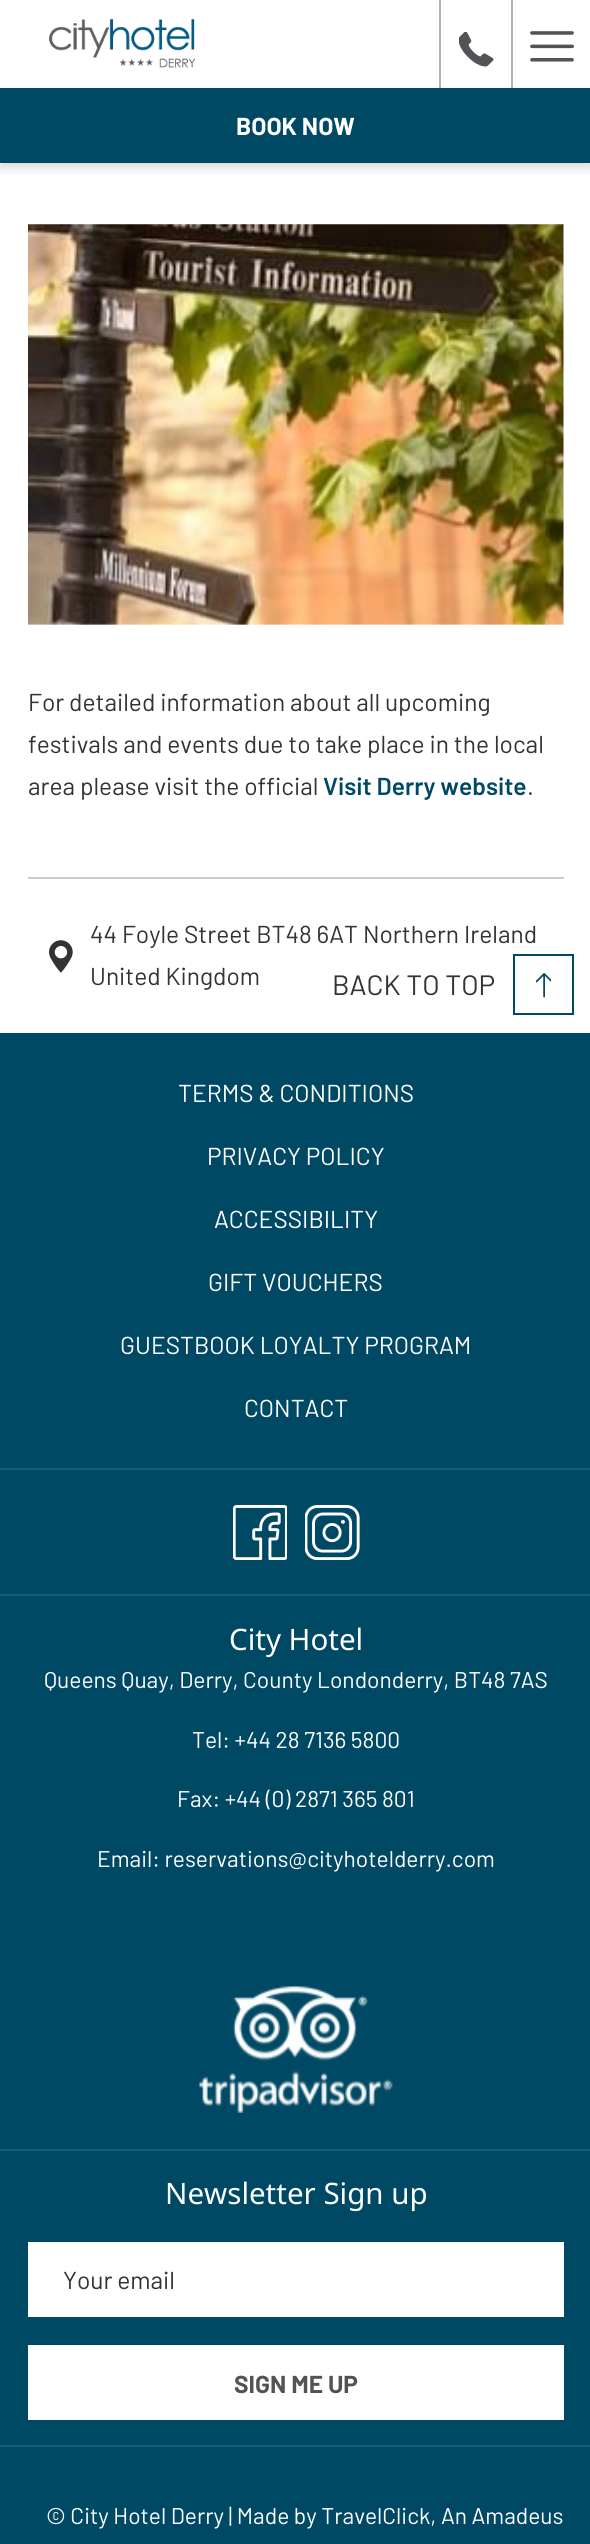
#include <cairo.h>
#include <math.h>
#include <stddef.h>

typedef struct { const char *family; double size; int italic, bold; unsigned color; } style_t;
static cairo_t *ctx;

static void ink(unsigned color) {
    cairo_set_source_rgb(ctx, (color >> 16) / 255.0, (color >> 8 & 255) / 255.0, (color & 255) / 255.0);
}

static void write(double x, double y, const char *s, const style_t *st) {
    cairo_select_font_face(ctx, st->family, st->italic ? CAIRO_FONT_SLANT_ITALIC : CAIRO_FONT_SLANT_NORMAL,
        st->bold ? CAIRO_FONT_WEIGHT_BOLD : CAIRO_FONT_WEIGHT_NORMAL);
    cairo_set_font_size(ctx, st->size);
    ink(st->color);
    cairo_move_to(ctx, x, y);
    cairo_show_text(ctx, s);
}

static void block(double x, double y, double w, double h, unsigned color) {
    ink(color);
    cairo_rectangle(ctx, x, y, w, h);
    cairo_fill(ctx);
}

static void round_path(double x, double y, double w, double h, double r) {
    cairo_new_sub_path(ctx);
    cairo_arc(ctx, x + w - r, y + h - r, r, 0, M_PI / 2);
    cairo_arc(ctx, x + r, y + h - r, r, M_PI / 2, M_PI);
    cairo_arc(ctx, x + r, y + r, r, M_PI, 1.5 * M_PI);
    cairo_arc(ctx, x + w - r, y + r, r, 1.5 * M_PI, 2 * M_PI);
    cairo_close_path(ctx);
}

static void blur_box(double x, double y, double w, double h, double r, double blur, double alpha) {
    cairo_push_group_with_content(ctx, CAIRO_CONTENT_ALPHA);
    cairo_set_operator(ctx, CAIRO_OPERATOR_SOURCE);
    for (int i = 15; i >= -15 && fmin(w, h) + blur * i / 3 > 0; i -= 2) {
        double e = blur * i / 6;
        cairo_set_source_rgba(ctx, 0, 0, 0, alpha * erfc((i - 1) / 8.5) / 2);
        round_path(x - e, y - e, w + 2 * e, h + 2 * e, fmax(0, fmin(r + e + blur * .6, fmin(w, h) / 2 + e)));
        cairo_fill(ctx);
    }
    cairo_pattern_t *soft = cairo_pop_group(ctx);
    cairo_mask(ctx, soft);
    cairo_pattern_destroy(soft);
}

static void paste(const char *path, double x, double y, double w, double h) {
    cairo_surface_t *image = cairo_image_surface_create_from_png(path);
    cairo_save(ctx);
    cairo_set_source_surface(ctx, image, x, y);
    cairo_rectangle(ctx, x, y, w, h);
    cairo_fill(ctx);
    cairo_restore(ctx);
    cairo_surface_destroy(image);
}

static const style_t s1 = {"Barlow", 24.5, 0, 1, 0xffffff};
static const style_t s2 = {"Barlow", 24.5, 0, 0, 0x333333};
static const style_t s3 = {"Barlow SemiBold", 24.5, 0, 0, 0x004964};
static const style_t s4 = {"Barlow", 28, 0, 0, 0x333333};
static const style_t s5 = {"Barlow", 24.5, 0, 0, 0xffffff};
static const style_t s6 = {"Noto Sans", 29.5, 0, 0, 0xffffff};
static const style_t s7 = {"Barlow", 22.75, 0, 0, 0xffffff};
static const style_t s8 = {"Barlow", 24.5, 0, 1, 0x525356};

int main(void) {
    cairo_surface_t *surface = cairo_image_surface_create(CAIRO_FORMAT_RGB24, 590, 2544);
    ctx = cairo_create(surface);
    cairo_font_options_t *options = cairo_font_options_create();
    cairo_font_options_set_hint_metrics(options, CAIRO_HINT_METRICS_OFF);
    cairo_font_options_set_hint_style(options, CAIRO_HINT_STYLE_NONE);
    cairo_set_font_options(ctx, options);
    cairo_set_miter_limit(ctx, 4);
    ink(0xffffff);
    cairo_paint(ctx);
    paste("pic1.png", 49, 19, 146, 49);
    block(439, 0, 2, 88, 0xb3b3b3);
    paste("pic2.png", 459, 32, 35, 35);
    ink(0x000000);
    blur_box(0, 93, 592, 75, 0, 5, 0.15);
    block(511, 0, 2, 88, 0xb3b3b3);
    paste("pic3.png", 530, 31, 44, 31);
    block(0, 88, 590, 75, 0x004964);
    write(236, 135, "BOOK NOW", &s1);
    paste("pic4.png", 28, 224, 536, 401);
    write(28, 711, "For detailed information about all upcoming", &s2);
    write(28, 753, "festivals and events due to take place in the local", &s2);
    write(28, 795, "area please visit the official", &s2);
    write(323, 795, "Visit Derry website", &s3);
    write(527, 795, ".", &s2);
    block(28, 877, 536, 2, 0xcccccc);
    paste("pic5.png", 49, 940, 24, 33);
    write(90, 943, "44 Foyle Street BT48 6AT Northern Ireland", &s2);
    write(90, 985, "United Kingdom", &s2);
    write(332, 995, "BACK TO TOP", &s4);
    cairo_rectangle(ctx, 514, 955, 59, 59);
    ink(0x004964);
    cairo_stroke(ctx);
    paste("pic6.png", 536, 973, 15, 25);
    block(0, 1033, 590, 1511, 0x004964);
    block(0, 1468, 590, 2, 0x1a5b74);
    write(178, 1102, "TERMS & CONDITIONS", &s5);
    write(207, 1165, "PRIVACY POLICY", &s5);
    write(214, 1228, "ACCESSIBILITY", &s5);
    write(208, 1291, "GIFT VOUCHERS", &s5);
    write(120, 1354, "GUESTBOOK LOYALTY PROGRAM", &s5);
    write(244, 1417, "CONTACT", &s5);
    block(0, 1594, 590, 2, 0x1a5b74);
    paste("pic7.png", 233, 1505, 54, 55);
    paste("pic8.png", 305, 1505, 55, 55);
    block(0, 2149, 590, 2, 0x1a5b74);
    write(229, 1650, "City Hotel", &s6);
    write(44, 1688, "Queens Quay, Derry, County Londonderry, BT48 7AS", &s7);
    write(192, 1748, "Tel: +44 28 7136 5800", &s7);
    write(177, 1807, "Fax: +44 (0) 2871 365 801", &s7);
    write(97, 1867, "Email: reservations@cityhotelderry.com", &s7);
    paste("pic9.png", 199, 1986, 194, 127);
    block(0, 2445, 590, 2, 0x1a5b74);
    write(165, 2204, "Newsletter Sign up", &s6);
    block(28, 2242, 536, 75, 0xffffff);
    write(63, 2289, "Your email", &s2);
    block(28, 2345, 536, 75, 0xffffff);
    write(234, 2393, "SIGN ME UP", &s8);
    write(46, 2524, "© City Hotel Derry | Made by TravelClick, An Amadeus", &s7);
    cairo_surface_write_to_png(surface, "screenshot.png");
    cairo_font_options_destroy(options);
    cairo_destroy(ctx);
    cairo_surface_destroy(surface);
    return 0;
}
